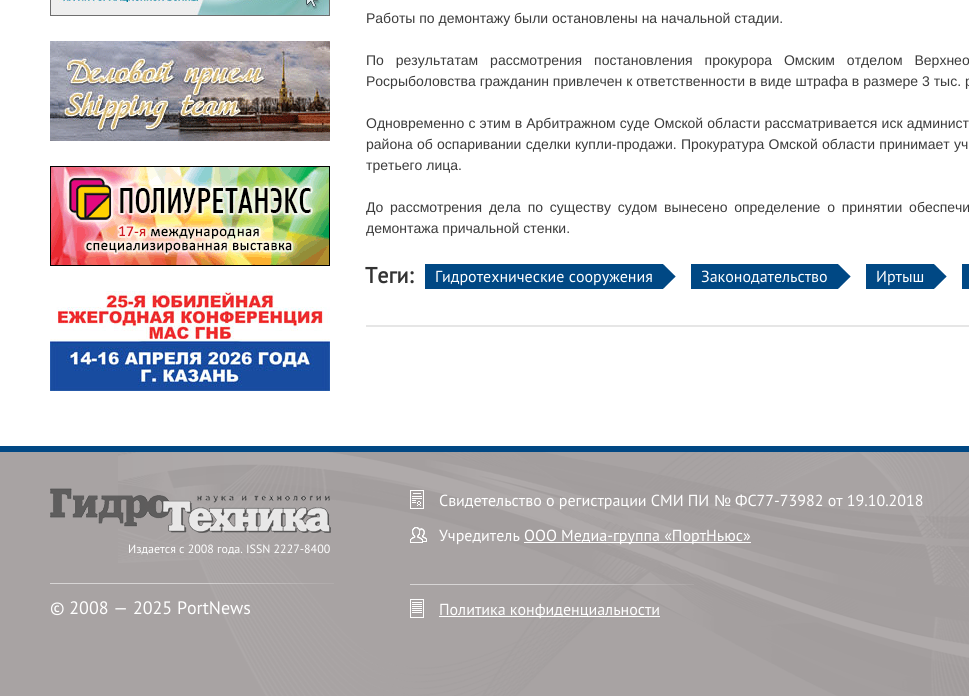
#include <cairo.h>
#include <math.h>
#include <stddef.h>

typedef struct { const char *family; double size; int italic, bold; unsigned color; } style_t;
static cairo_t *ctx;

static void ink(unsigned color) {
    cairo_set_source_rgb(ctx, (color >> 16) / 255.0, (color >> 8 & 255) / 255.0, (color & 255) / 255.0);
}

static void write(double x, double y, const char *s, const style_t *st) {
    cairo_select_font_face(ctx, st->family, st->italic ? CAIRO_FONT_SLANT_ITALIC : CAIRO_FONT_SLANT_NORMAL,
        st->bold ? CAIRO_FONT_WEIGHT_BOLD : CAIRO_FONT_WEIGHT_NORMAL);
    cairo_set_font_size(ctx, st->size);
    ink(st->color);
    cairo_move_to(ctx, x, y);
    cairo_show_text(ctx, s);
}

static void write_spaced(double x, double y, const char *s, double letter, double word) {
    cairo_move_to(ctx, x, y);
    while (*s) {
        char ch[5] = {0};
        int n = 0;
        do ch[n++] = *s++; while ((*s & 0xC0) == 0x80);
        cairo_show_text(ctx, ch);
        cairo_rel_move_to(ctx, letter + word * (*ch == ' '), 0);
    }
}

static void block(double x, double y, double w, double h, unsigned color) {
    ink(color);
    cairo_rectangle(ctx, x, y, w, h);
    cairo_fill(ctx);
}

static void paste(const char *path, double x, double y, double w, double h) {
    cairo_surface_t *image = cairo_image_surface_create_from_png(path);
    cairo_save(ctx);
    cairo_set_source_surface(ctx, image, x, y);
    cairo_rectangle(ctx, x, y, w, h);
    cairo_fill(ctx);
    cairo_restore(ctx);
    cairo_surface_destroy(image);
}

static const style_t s1 = {"Liberation Sans", 14, 0, 0, 0x3b3b3b};
static const style_t s2 = {"PT Sans", 22, 0, 1, 0x333333};
static const style_t s3 = {"PT Sans", 16, 0, 0, 0xffffff};
static const style_t s4 = {"PT Sans", 12, 0, 0, 0xffffff};
static const style_t s5 = {"PT Sans", 18, 0, 0, 0xffffff};
static const style_t s6 = {"Liberation Sans", 16, 0, 0, 0xffffff};

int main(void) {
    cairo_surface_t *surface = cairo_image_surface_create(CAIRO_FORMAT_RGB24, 969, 696);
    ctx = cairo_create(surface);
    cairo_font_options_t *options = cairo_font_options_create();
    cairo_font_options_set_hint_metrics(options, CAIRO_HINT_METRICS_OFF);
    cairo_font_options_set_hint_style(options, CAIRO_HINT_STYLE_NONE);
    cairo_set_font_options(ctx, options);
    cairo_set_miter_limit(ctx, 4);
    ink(0xffffff);
    cairo_paint(ctx);
    paste("pic1.png", 50, 0, 280, 16);
    paste("pic2.png", 50, 41, 280, 100);
    paste("pic3.png", 50, 166, 280, 100);
    paste("pic4.png", 50, 291, 280, 100);
    write(366, 23, "Работы по демонтажу были остановлены на начальной стадии.", &s1);
    write_spaced(366, 65, "По результатам рассмотрения постановления прокурора Омским отделом Верхнео", 0, 8);
    write(366, 86, "Росрыболовства гражданин привлечен к ответственности в виде штрафа в размере 3 тыс. р", &s1);
    write_spaced(366, 128, "Одновременно с этим в Арбитражном суде Омской области рассматривается иск админист", 0, 0.25);
    write_spaced(366, 149, "района об оспаривании сделки купли-продажи. Прокуратура Омской области принимает уч", 0, 0.4);
    write(366, 170, "третьего лица.", &s1);
    write_spaced(366, 212, "До рассмотрения дела по существу судом вынесено определение о принятии обеспечи", 0, 2.9);
    write(366, 233, "демонтажа причальной стенки.", &s1);
    write(365, 283, "Теги:", &s2);
    block(425, 264, 238, 25, 0x004884);
    write(435, 282, "Гидротехнические сооружения", &s3);
    paste("pic5.png", 663, 264, 13, 25);
    block(691, 264, 147, 25, 0x004884);
    write(701, 282, "Законодательство", &s3);
    paste("pic5.png", 838, 264, 13, 25);
    block(866, 264, 68, 25, 0x004884);
    write(876, 282, "Иртыш", &s3);
    paste("pic5.png", 934, 264, 13, 25);
    block(962, 264, 7, 25, 0x004884);
    block(366, 325, 603, 2, 0xe6e6e6);
    block(0, 452, 969, 244, 0xa8a3a3);
    paste("pic6.png", 118, 452, 851, 244);
    block(0, 446, 969, 6, 0x004884);
    paste("pic7.png", 50, 488, 281, 45);
    write(128, 553, "Издается с 2008 года. ISSN 2227-8400", &s4);
    paste("pic8.png", 50, 583, 284, 1);
    write(50, 614, "© 2008 — 2025 PortNews", &s5);
    paste("pic9.png", 410, 490, 14, 19);
    write(439, 506, "Свидетельство о регистрации СМИ ПИ", &s3);
    write(714, 506, "№", &s6);
    write(735, 506, "ФС77-73982 от 19.10.2018", &s3);
    paste("pic10.png", 410, 527, 17, 16);
    write(439, 541, "Учредитель", &s3);
    block(524, 542, 227, 1, 0xffffff);
    write(524, 541, "ООО Медиа-группа «ПортНьюс»", &s3);
    paste("pic11.png", 410, 584, 284, 1);
    paste("pic12.png", 410, 599, 14, 19);
    block(439, 616, 221, 1, 0xffffff);
    write(439, 615, "Политика конфиденциальности", &s3);
    cairo_surface_write_to_png(surface, "screenshot.png");
    cairo_font_options_destroy(options);
    cairo_destroy(ctx);
    cairo_surface_destroy(surface);
    return 0;
}
